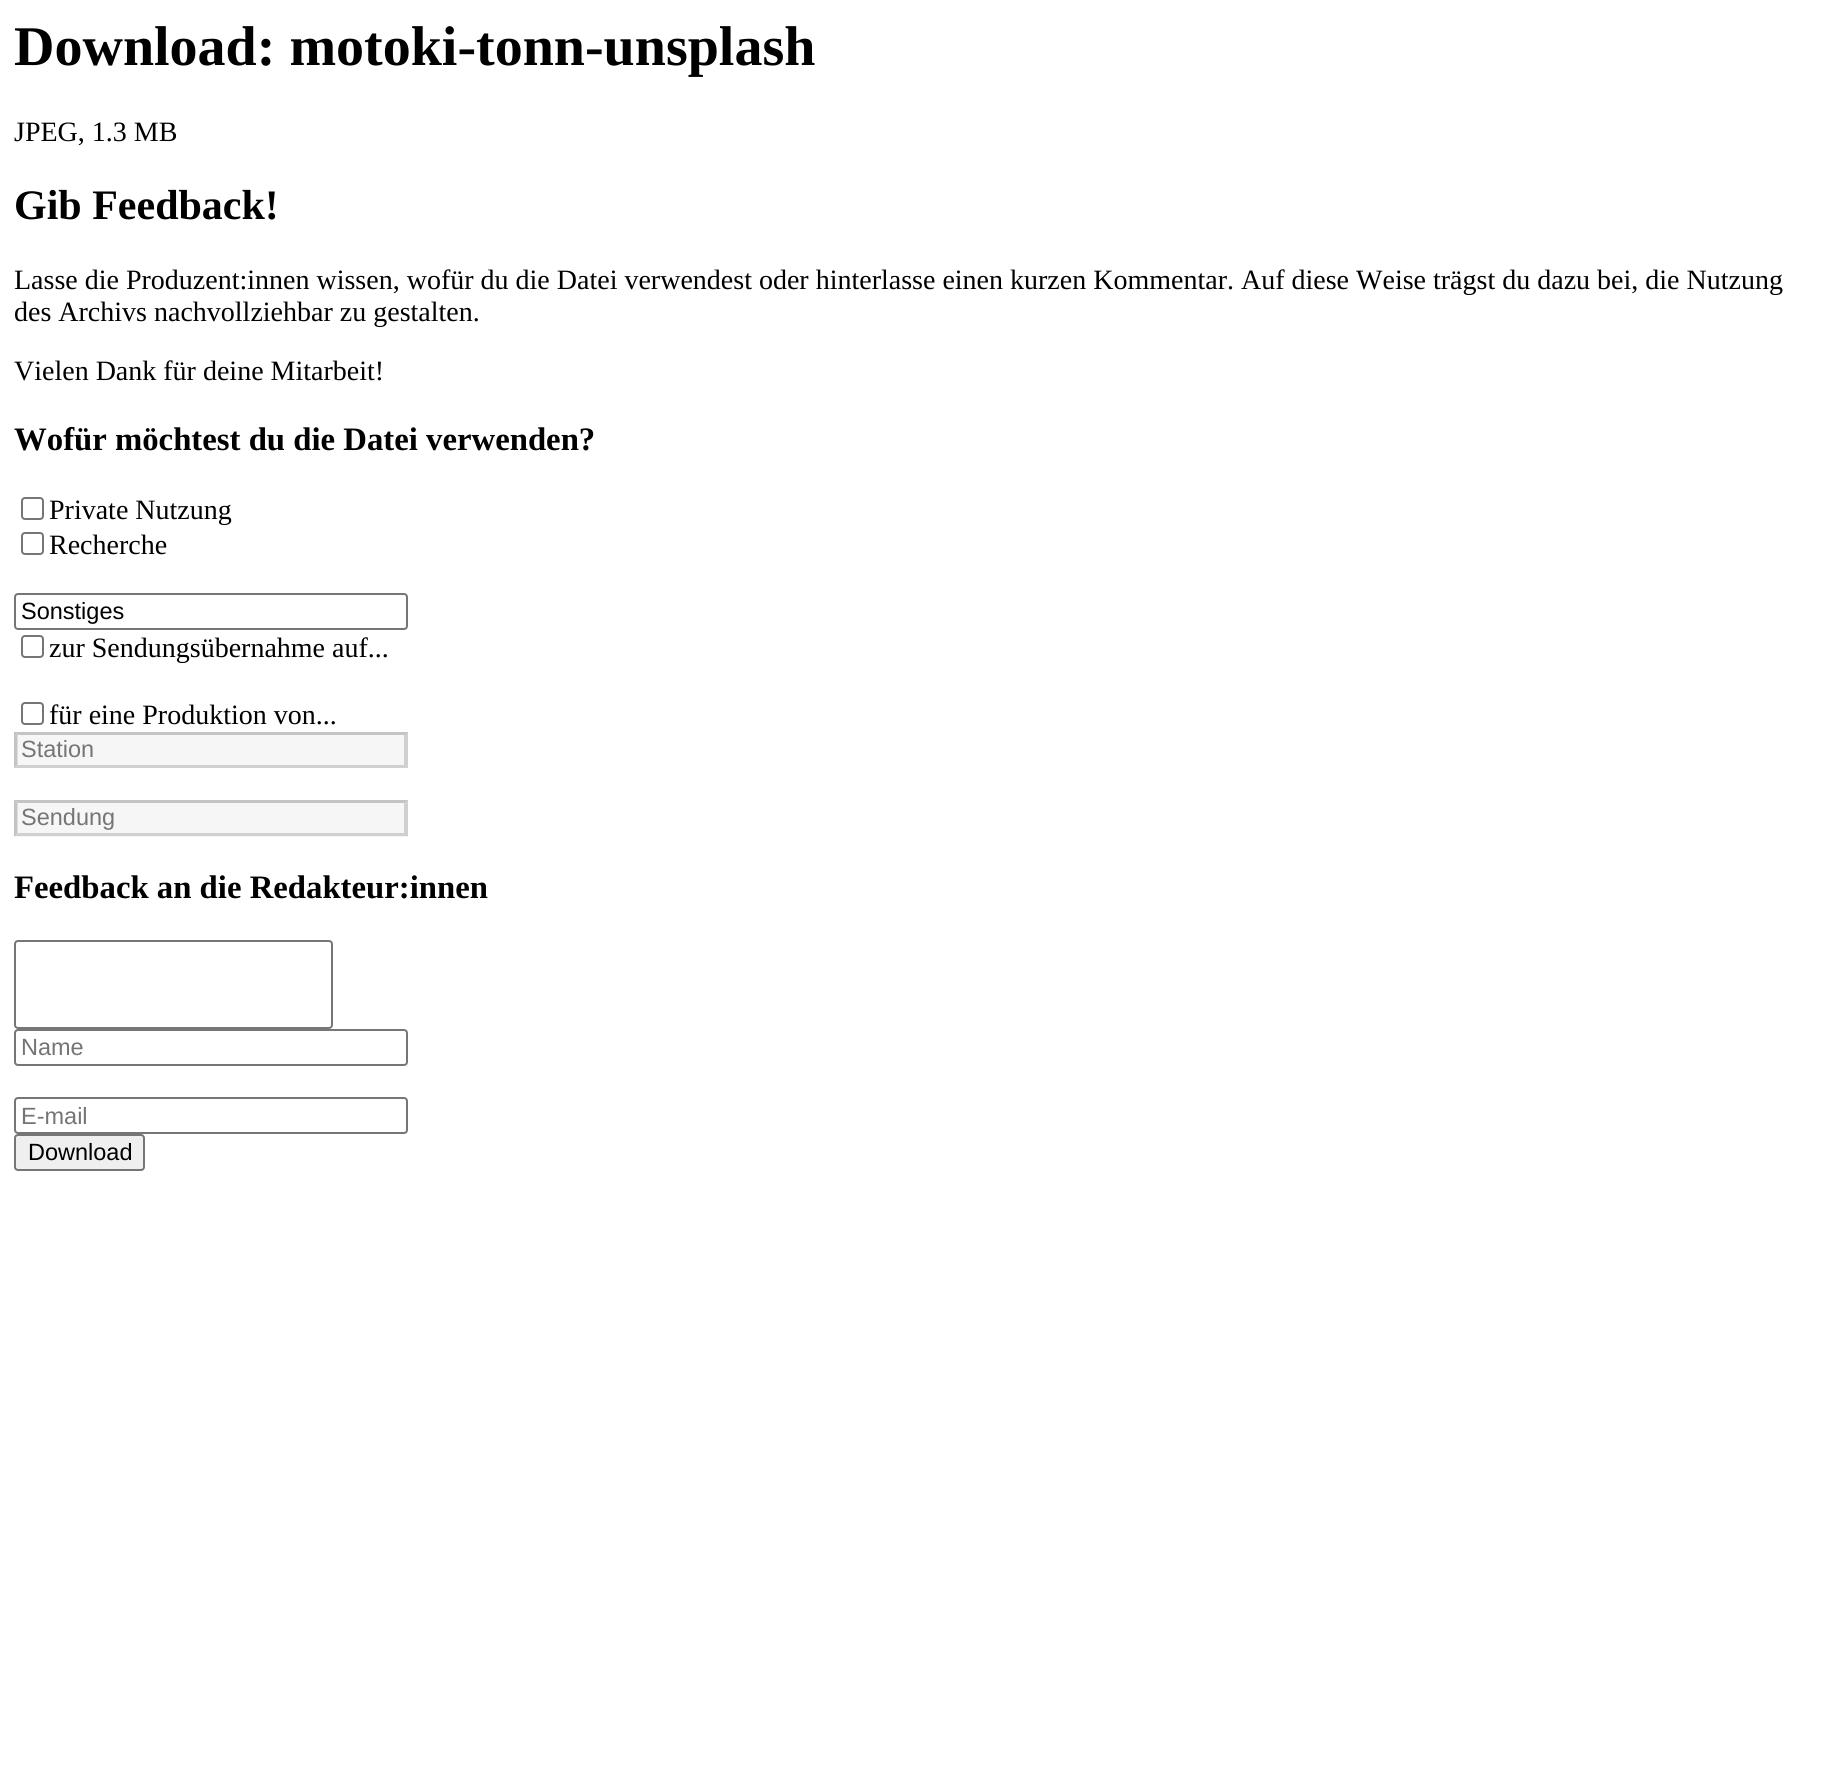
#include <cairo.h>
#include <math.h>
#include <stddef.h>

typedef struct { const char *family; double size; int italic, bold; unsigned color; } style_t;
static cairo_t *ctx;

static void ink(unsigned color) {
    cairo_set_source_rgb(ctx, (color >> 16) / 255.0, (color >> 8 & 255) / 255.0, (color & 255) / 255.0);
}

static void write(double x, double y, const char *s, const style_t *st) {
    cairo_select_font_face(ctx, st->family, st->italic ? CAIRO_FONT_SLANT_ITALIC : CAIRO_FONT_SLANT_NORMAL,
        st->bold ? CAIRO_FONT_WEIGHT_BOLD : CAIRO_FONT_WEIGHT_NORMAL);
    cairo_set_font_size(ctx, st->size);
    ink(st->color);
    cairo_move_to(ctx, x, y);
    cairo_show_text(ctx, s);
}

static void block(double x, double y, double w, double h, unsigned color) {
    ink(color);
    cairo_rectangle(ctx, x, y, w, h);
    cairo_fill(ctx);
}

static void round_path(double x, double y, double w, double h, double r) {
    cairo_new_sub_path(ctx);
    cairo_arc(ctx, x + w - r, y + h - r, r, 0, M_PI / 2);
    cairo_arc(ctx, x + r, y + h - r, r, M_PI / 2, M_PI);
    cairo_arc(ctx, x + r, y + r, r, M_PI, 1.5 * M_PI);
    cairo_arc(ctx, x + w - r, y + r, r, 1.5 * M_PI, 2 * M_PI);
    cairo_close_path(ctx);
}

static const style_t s1 = {"Liberation Serif", 56, 0, 1, 0x000000};
static const style_t s2 = {"Liberation Serif", 28, 0, 0, 0x000000};
static const style_t s3 = {"Liberation Serif", 42, 0, 1, 0x000000};
static const style_t s4 = {"Liberation Serif", 32.75, 0, 1, 0x000000};
static const style_t s5 = {"Liberation Sans", 23.5, 0, 0, 0x000000};
static const style_t s6 = {"Liberation Sans", 23.5, 0, 0, 0x757575};

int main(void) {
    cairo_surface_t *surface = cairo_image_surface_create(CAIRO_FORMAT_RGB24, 1831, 1781);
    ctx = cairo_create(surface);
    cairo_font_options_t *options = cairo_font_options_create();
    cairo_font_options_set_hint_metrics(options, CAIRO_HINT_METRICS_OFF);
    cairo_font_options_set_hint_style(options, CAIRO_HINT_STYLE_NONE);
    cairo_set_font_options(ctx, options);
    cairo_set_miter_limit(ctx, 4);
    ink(0xffffff);
    cairo_paint(ctx);
    write(14, 65, "Download: motoki-tonn-unsplash", &s1);
    write(14, 141, "JPEG, 1.3 MB", &s2);
    write(14, 219, "Gib Feedback!", &s3);
    write(14, 289, "Lasse die Produzent:innen wissen, wofür du die Datei verwendest oder hinterlasse einen kurzen Kommentar. Auf diese Weise trägst du dazu bei, die Nutzung", &s2);
    write(14, 321, "des Archivs nachvollziehbar zu gestalten.", &s2);
    write(14, 380, "Vielen Dank für deine Mitarbeit!", &s2);
    write(14, 450, "Wofür möchtest du die Datei verwenden?", &s4);
    round_path(22, 498, 21, 21, 3);
    ink(0x767676);
    cairo_stroke(ctx);
    write(49, 519, "Private Nutzung", &s2);
    round_path(22, 533, 21, 21, 3);
    ink(0x767676);
    cairo_stroke(ctx);
    write(49, 554, "Recherche", &s2);
    round_path(15, 594, 392, 35, 3);
    ink(0x767676);
    cairo_stroke(ctx);
    write(21, 619, "Sonstiges", &s5);
    round_path(22, 636, 21, 21, 3);
    ink(0x767676);
    cairo_stroke(ctx);
    write(49, 657, "zur Sendungsübernahme auf...", &s2);
    round_path(22, 703, 21, 21, 3);
    ink(0x767676);
    cairo_stroke(ctx);
    write(49, 724, "für eine Produktion von...", &s2);
    block(14, 732, 394, 36, 0xf6f6f6);
    ink(0xc4c4c4);
    cairo_new_path(ctx);
    cairo_move_to(ctx, 14, 732);
    cairo_line_to(ctx, 408, 732);
    cairo_line_to(ctx, 404, 735);
    cairo_line_to(ctx, 18, 735);
    cairo_close_path(ctx);
    cairo_fill(ctx);
    cairo_set_source_rgba(ctx, 0.463, 0.463, 0.463, 0.3);
    cairo_new_path(ctx);
    cairo_move_to(ctx, 408, 731.5);
    cairo_line_to(ctx, 408, 768);
    cairo_line_to(ctx, 404, 765);
    cairo_line_to(ctx, 404, 735);
    cairo_close_path(ctx);
    cairo_fill(ctx);
    cairo_new_path(ctx);
    cairo_move_to(ctx, 408, 768);
    cairo_line_to(ctx, 14, 768);
    cairo_line_to(ctx, 18, 765);
    cairo_line_to(ctx, 404, 765);
    cairo_close_path(ctx);
    cairo_fill(ctx);
    cairo_set_source_rgba(ctx, 0.31, 0.31, 0.31, 0.3);
    cairo_new_path(ctx);
    cairo_move_to(ctx, 14, 768);
    cairo_line_to(ctx, 14, 731.5);
    cairo_line_to(ctx, 17.5, 735);
    cairo_line_to(ctx, 17.5, 765);
    cairo_close_path(ctx);
    cairo_fill(ctx);
    write(21, 757, "Station", &s6);
    block(14, 800, 394, 37, 0xf6f6f6);
    ink(0xc4c4c4);
    cairo_new_path(ctx);
    cairo_move_to(ctx, 14, 800);
    cairo_line_to(ctx, 408, 800);
    cairo_line_to(ctx, 404, 803);
    cairo_line_to(ctx, 18, 803);
    cairo_close_path(ctx);
    cairo_fill(ctx);
    cairo_set_source_rgba(ctx, 0.463, 0.463, 0.463, 0.3);
    cairo_new_path(ctx);
    cairo_move_to(ctx, 408, 800);
    cairo_line_to(ctx, 408, 836.5);
    cairo_line_to(ctx, 404, 833);
    cairo_line_to(ctx, 404, 803);
    cairo_close_path(ctx);
    cairo_fill(ctx);
    cairo_new_path(ctx);
    cairo_move_to(ctx, 408, 836);
    cairo_line_to(ctx, 14, 836);
    cairo_line_to(ctx, 18, 833);
    cairo_line_to(ctx, 404, 833);
    cairo_close_path(ctx);
    cairo_fill(ctx);
    cairo_set_source_rgba(ctx, 0.31, 0.31, 0.31, 0.3);
    cairo_new_path(ctx);
    cairo_move_to(ctx, 14, 836.5);
    cairo_line_to(ctx, 14, 800);
    cairo_line_to(ctx, 17.5, 803);
    cairo_line_to(ctx, 17.5, 833);
    cairo_close_path(ctx);
    cairo_fill(ctx);
    write(21, 825, "Sendung", &s6);
    write(14, 898, "Feedback an die Redakteur:innen", &s4);
    round_path(15, 941, 317, 87, 3);
    ink(0x767676);
    cairo_stroke(ctx);
    round_path(15, 1030, 392, 35, 3);
    cairo_stroke(ctx);
    write(21, 1055, "Name", &s6);
    round_path(15, 1098, 392, 35, 3);
    ink(0x767676);
    cairo_stroke(ctx);
    write(21, 1124, "E-mail", &s6);
    ink(0xefefef);
    round_path(15, 1135, 129, 35, 3);
    cairo_fill_preserve(ctx);
    ink(0x767676);
    cairo_stroke(ctx);
    write(28, 1160, "Download", &s5);
    cairo_surface_write_to_png(surface, "screenshot.png");
    cairo_font_options_destroy(options);
    cairo_destroy(ctx);
    cairo_surface_destroy(surface);
    return 0;
}
